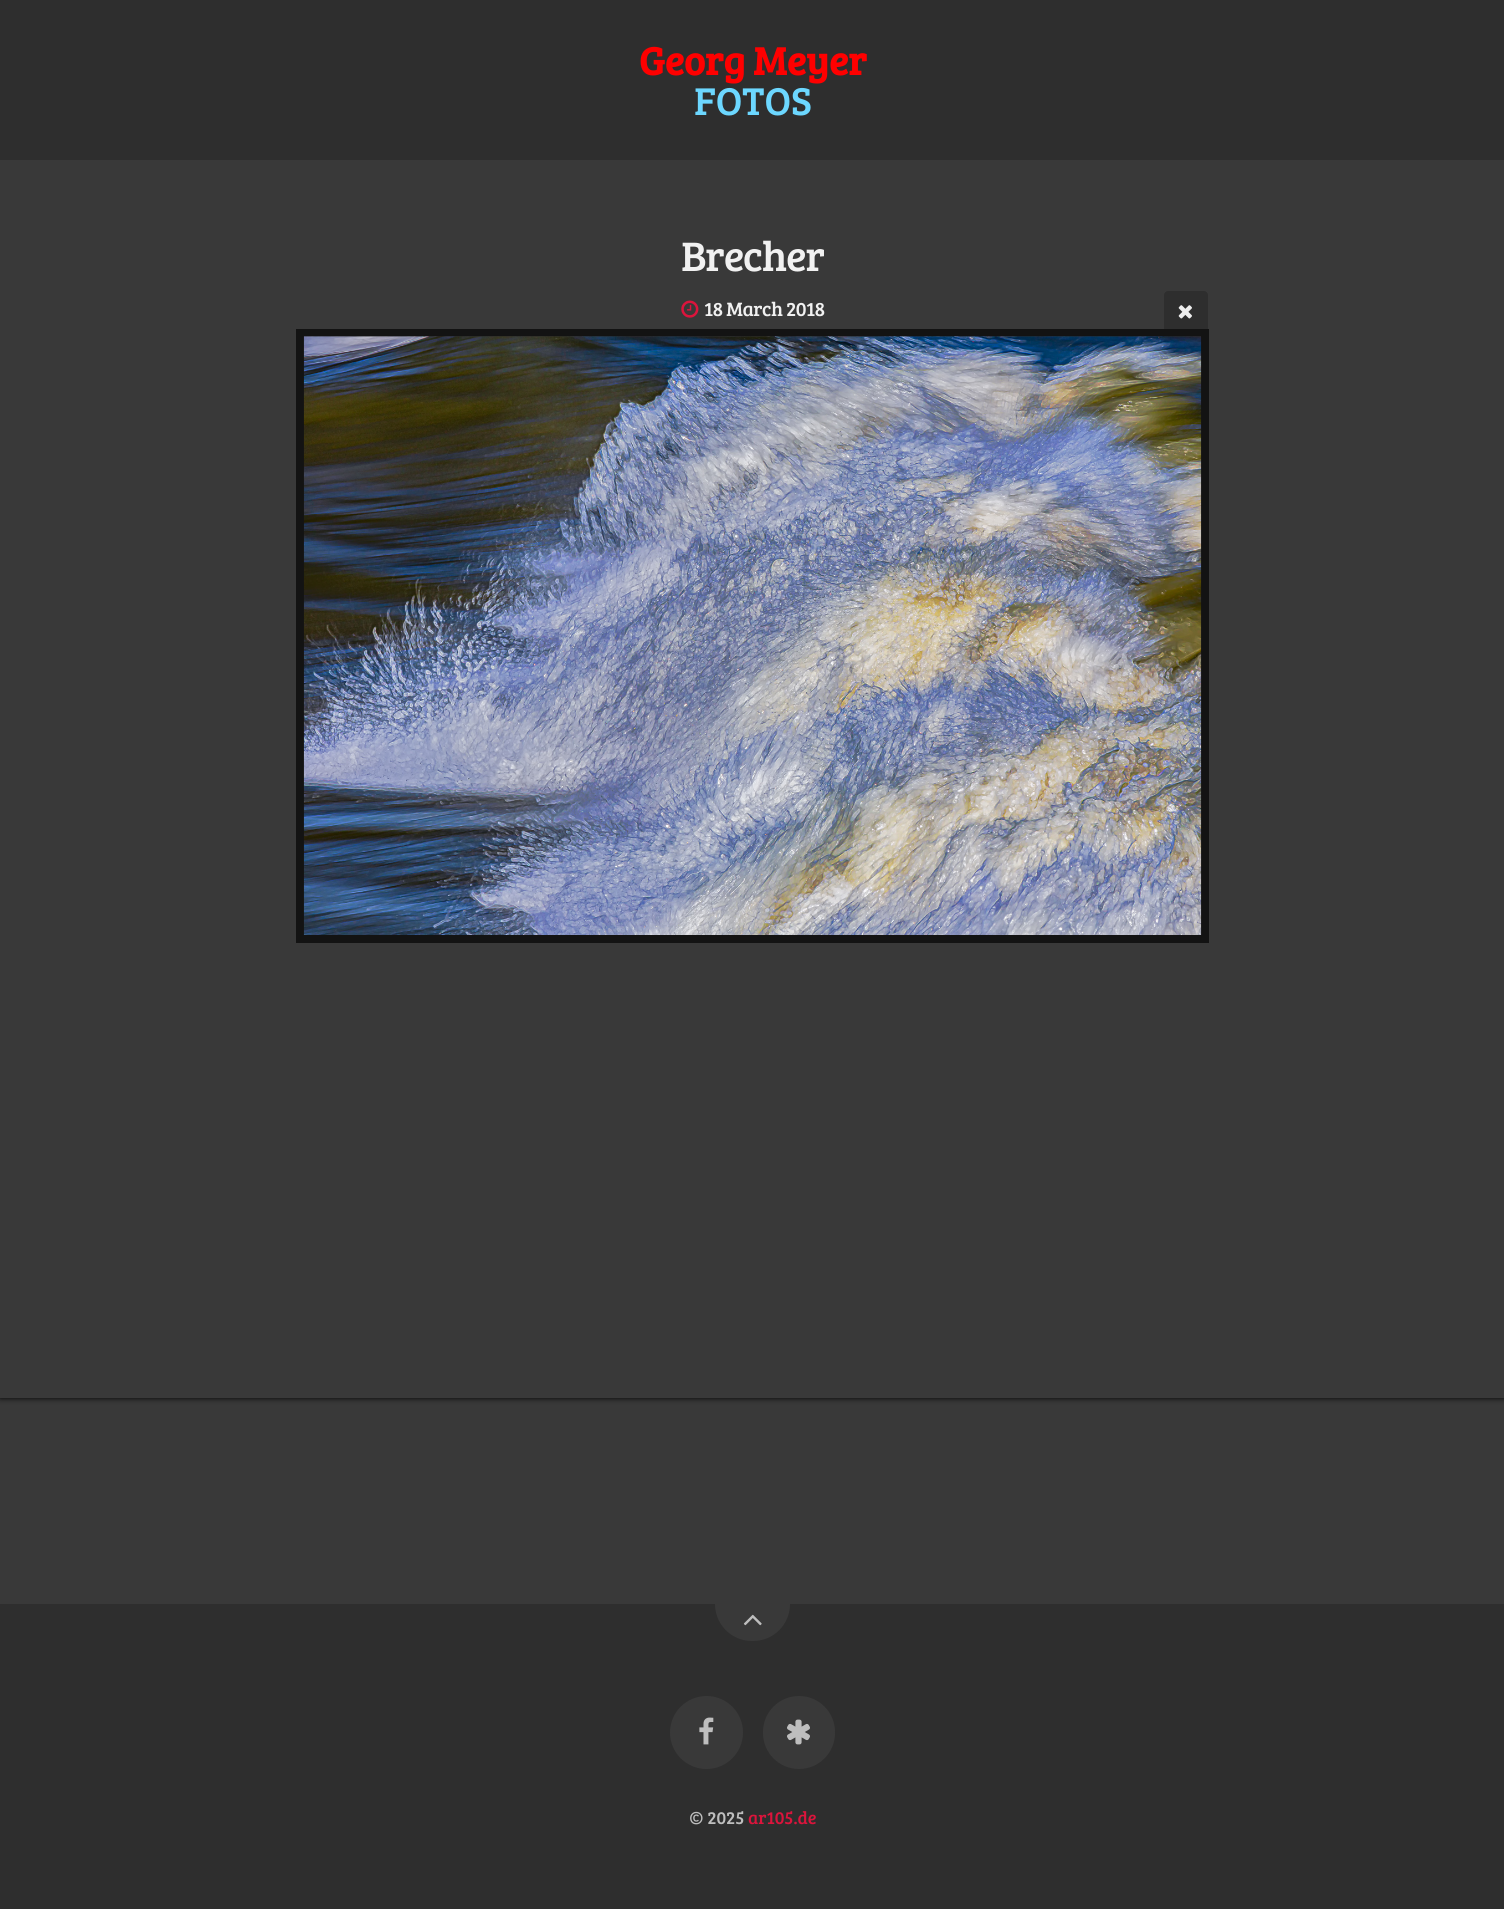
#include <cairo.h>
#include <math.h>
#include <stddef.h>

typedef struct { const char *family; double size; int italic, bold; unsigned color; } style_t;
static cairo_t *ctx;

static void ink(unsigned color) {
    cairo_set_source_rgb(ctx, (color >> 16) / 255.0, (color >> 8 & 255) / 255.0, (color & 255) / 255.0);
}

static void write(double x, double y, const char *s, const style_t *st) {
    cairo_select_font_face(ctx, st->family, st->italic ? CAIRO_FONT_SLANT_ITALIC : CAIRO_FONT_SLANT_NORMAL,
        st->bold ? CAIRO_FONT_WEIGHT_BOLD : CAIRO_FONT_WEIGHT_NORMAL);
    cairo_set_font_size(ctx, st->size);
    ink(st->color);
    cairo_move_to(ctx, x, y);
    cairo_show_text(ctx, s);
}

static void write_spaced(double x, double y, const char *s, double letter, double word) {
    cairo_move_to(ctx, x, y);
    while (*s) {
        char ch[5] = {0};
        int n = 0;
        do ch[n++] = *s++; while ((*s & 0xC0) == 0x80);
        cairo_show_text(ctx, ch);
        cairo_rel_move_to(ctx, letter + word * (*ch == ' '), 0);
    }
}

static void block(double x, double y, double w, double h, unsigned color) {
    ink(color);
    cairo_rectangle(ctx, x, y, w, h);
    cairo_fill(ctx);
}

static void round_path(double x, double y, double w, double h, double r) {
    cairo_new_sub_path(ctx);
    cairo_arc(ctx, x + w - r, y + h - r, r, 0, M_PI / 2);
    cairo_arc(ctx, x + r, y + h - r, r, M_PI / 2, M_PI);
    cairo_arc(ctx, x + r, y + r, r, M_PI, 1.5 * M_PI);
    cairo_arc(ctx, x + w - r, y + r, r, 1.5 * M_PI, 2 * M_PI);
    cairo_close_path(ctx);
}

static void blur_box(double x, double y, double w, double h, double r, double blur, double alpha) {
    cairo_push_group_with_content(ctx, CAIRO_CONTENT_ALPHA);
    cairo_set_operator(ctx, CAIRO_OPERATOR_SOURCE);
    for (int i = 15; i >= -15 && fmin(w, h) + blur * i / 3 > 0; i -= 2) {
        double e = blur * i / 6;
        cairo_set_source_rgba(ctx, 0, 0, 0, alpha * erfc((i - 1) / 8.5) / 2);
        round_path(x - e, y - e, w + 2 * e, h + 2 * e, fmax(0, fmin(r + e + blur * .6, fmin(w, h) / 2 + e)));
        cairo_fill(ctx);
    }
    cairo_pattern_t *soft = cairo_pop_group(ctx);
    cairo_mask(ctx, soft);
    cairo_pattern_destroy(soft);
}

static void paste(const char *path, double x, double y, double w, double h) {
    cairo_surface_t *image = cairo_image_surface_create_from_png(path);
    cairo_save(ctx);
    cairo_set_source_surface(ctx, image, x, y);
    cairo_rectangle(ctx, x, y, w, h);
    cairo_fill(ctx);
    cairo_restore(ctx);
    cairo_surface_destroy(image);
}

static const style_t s1 = {"Bree Serif", 40, 0, 1, 0xff0000};
static const style_t s2 = {"Bree Serif", 40, 0, 0, 0x6cd7ff};
static const style_t s3 = {"Bree Serif", 18, 0, 0, 0xbebebe};
static const style_t s4 = {"Bree Serif", 18, 0, 0, 0xdc143c};

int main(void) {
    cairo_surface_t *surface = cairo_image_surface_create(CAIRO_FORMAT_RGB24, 1504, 1909);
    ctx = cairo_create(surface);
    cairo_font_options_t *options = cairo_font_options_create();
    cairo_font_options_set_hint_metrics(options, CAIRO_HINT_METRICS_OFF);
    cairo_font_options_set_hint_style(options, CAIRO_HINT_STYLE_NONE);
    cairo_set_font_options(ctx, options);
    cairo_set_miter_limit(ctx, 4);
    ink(0x393939);
    cairo_paint(ctx);
    cairo_save(ctx);
    cairo_set_fill_rule(ctx, CAIRO_FILL_RULE_EVEN_ODD);
    cairo_new_path(ctx);
    cairo_move_to(ctx, 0, 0);
    cairo_line_to(ctx, 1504, 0);
    cairo_line_to(ctx, 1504, 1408);
    cairo_line_to(ctx, 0, 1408);
    cairo_close_path(ctx);
    cairo_move_to(ctx, 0, 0);
    cairo_line_to(ctx, 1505, 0);
    cairo_line_to(ctx, 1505, 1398);
    cairo_line_to(ctx, 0, 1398);
    cairo_close_path(ctx);
    cairo_clip(ctx);
    ink(0x000000);
    blur_box(0, 0, 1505, 1398, 0, 3, 1);
    cairo_restore(ctx);
    block(0, 0, 1504, 160, 0x2e2e2e);
    write(639, 75, "Georg Meyer", &s1);
    write(694, 115, "FOTOS", &s2);
    cairo_set_font_size(ctx, 42.5);
    ink(0xf1f1f1);
    write_spaced(681, 271, "Brecher", -1.25, 0);
    paste("pic1.png", 681, 300, 18, 18);
    cairo_set_font_size(ctx, 20);
    write_spaced(704, 316, "18 March 2018", -0.5, 0);
    ink(0x2e2e2e);
    cairo_new_path(ctx);
    cairo_move_to(ctx, 1168, 291);
    cairo_line_to(ctx, 1204, 291);
    cairo_curve_to(ctx, 1206, 291, 1208, 293, 1208, 295);
    cairo_line_to(ctx, 1208, 329);
    cairo_line_to(ctx, 1164, 329);
    cairo_line_to(ctx, 1164, 295);
    cairo_curve_to(ctx, 1164, 293, 1166, 291, 1168, 291);
    cairo_close_path(ctx);
    cairo_fill(ctx);
    paste("pic2.png", 1178, 305, 14, 14);
    block(296, 329, 913, 614, 0x131313);
    block(304, 336, 897, 1, 0x2c2c2c);
    paste("pic3.png", 303, 336, 899, 599);
    block(0, 1604, 1504, 305, 0x2e2e2e);
    ink(0x393939);
    cairo_new_path(ctx);
    cairo_move_to(ctx, 715, 1604);
    cairo_line_to(ctx, 790, 1604);
    cairo_curve_to(ctx, 790, 1624.5, 773.5, 1641, 753, 1641);
    cairo_line_to(ctx, 752, 1641);
    cairo_curve_to(ctx, 731.5, 1641, 715, 1624.5, 715, 1604);
    cairo_close_path(ctx);
    cairo_fill(ctx);
    paste("pic4.png", 743, 1614, 19, 12);
    cairo_arc(ctx, 706.5, 1732.5, 36.5, 0, 2 * M_PI);
    cairo_fill(ctx);
    paste("pic5.png", 699, 1717, 15, 28);
    round_path(763, 1696, 72, 73, 36);
    cairo_fill(ctx);
    paste("pic6.png", 787, 1719, 23, 26);
    write(689, 1824, "© 2025", &s3);
    write(748, 1824, "ar105.de", &s4);
    cairo_surface_write_to_png(surface, "screenshot.png");
    cairo_font_options_destroy(options);
    cairo_destroy(ctx);
    cairo_surface_destroy(surface);
    return 0;
}
